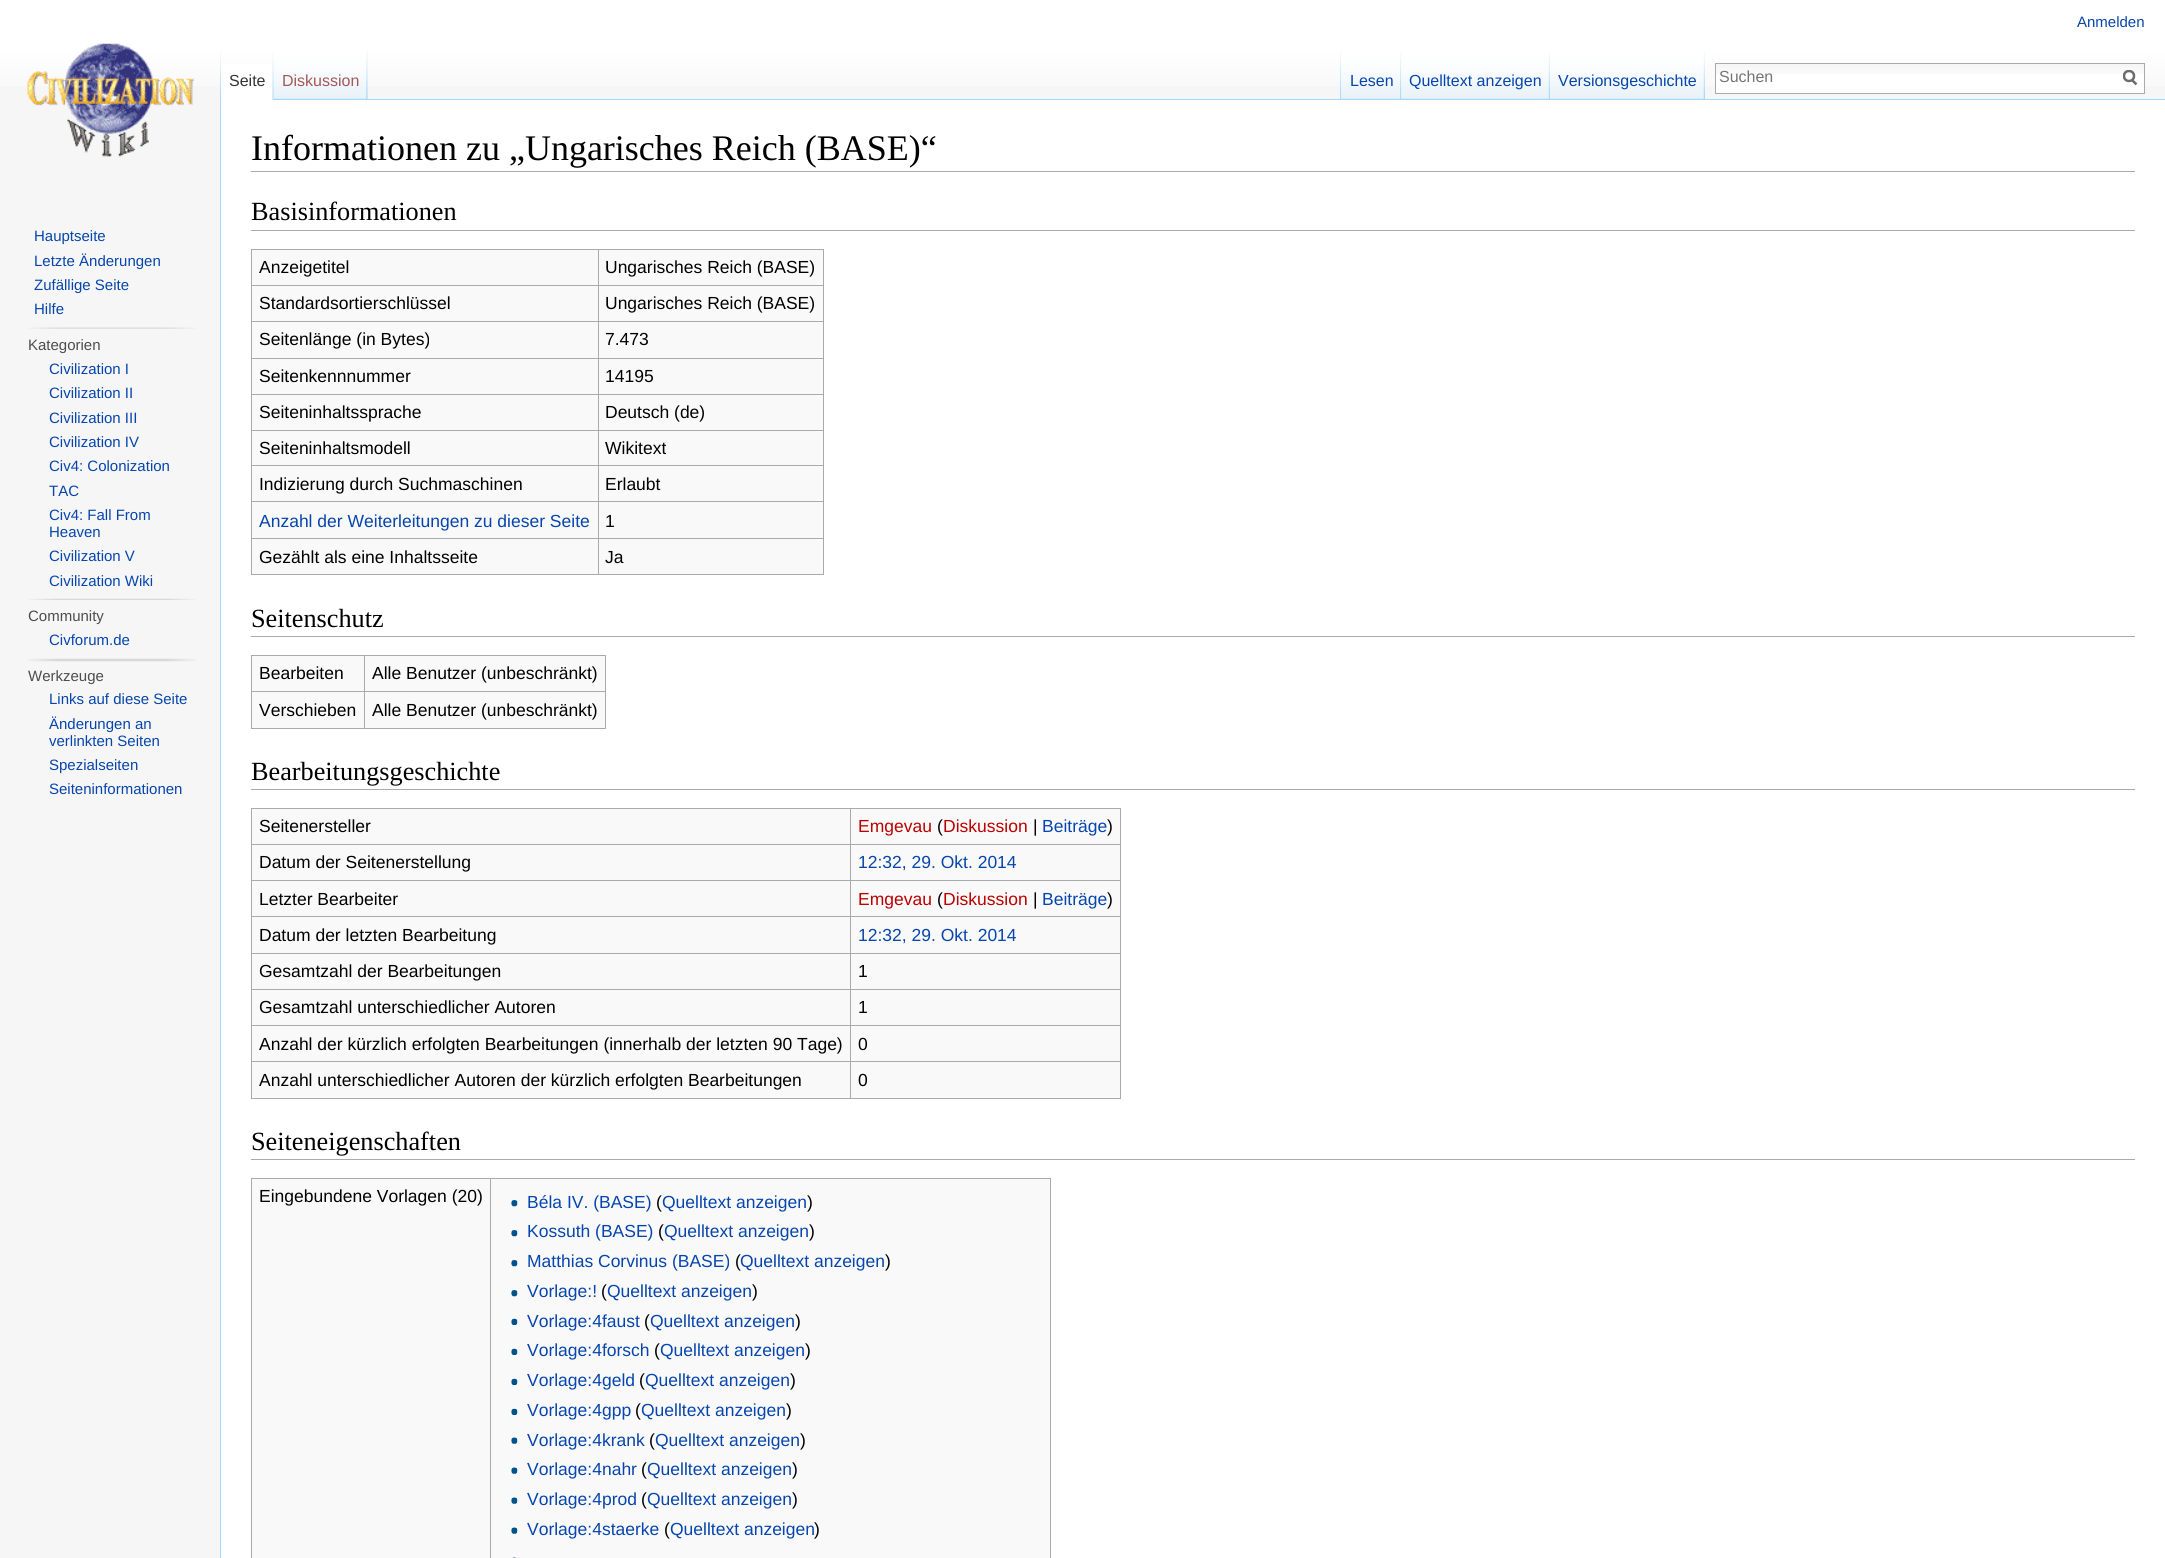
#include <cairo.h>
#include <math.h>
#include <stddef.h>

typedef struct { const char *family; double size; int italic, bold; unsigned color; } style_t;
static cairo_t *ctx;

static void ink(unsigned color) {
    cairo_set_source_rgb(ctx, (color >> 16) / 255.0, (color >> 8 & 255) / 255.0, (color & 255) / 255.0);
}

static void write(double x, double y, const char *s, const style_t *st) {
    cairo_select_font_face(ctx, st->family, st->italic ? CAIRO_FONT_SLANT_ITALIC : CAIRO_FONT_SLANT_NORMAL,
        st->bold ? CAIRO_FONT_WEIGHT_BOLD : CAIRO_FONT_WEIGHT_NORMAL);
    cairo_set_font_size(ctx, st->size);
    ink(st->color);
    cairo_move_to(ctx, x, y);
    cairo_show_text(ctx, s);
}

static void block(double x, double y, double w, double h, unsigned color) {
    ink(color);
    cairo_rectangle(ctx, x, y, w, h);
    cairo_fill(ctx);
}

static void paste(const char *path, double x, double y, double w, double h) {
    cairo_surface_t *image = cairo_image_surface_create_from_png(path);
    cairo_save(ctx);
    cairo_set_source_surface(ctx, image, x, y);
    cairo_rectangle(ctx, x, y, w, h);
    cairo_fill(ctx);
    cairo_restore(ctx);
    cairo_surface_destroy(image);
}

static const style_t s1 = {"Liberation Sans", 15, 0, 0, 0x0645ad};
static const style_t s2 = {"Liberation Sans", 16, 0, 0, 0x333333};
static const style_t s3 = {"Liberation Sans", 16, 0, 0, 0xa55858};
static const style_t s4 = {"Liberation Sans", 16, 0, 0, 0x0645ad};
static const style_t s5 = {"Liberation Sans", 16, 0, 0, 0x757575};
static const style_t s6 = {"Liberation Sans", 15, 0, 0, 0x4d4d4d};
static const style_t s7 = {"Liberation Serif", 36, 0, 0, 0x000000};
static const style_t s8 = {"Liberation Serif", 26.25, 0, 0, 0x000000};
static const style_t s9 = {"Liberation Sans", 17.5, 0, 0, 0x000000};
static const style_t s10 = {"Liberation Sans", 17.5, 0, 0, 0x0645ad};
static const style_t s11 = {"Liberation Sans", 17.5, 0, 0, 0xba0000};

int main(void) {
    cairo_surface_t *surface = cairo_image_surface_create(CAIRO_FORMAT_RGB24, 2165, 1558);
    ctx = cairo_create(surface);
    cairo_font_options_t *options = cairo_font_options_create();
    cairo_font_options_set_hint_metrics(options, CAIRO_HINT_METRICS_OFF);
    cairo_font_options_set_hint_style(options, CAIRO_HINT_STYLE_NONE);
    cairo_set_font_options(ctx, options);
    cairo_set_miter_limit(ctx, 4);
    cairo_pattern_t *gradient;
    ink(0xf6f6f6);
    cairo_paint(ctx);
    gradient = cairo_pattern_create_linear(1083, 0, 1083, 100);
    cairo_pattern_add_color_stop_rgba(gradient, 0.5, 1, 1, 1, 1);
    cairo_pattern_add_color_stop_rgba(gradient, 1, 0.965, 0.965, 0.965, 1);
    cairo_set_source(ctx, gradient);
    cairo_pattern_destroy(gradient);
    cairo_rectangle(ctx, 0, 0, 2165, 86);
    cairo_fill(ctx);
    write(2077, 27, "Anmelden", &s1);
    paste("pic1.png", 220, 50, 1, 49);
    block(221, 64, 53, 36, 0xffffff);
    paste("pic2.png", 272, 52, 2, 48);
    write(229, 86, "Seite", &s2);
    block(367, 50, 1, 50, 0xf3f3f3);
    paste("pic3.png", 273, 50, 95, 50);
    paste("pic4.png", 366, 52, 2, 48);
    write(282, 86, "Diskussion", &s3);
    paste("pic5.png", 1340, 50, 2, 49);
    block(368, 99, 1797, 1, 0xa7d7f9);
    paste("pic6.png", 1341, 50, 61, 50);
    paste("pic7.png", 1400, 50, 2, 49);
    write(1350, 86, "Lesen", &s4);
    paste("pic8.png", 1401, 50, 149, 50);
    paste("pic9.png", 1548, 50, 2, 49);
    write(1409, 86, "Quelltext anzeigen", &s4);
    paste("pic10.png", 1550, 50, 155, 50);
    paste("pic9.png", 1703, 50, 2, 49);
    write(1558, 86, "Versionsgeschichte", &s4);
    block(1716, 74, 428, 19, 0xffffff);
    paste("pic11.png", 1716, 64, 428, 10);
    cairo_rectangle(ctx, 1715.5, 63.5, 429, 30);
    ink(0xaaaaaa);
    cairo_set_line_width(ctx, 1);
    cairo_stroke(ctx);
    write(1719, 82, "Suchen", &s5);
    cairo_new_path(ctx);
    cairo_move_to(ctx, 2136.5, 84.5);
    cairo_line_to(ctx, 2131.5, 79.5);
    ink(0x6c6c6c);
    cairo_set_line_width(ctx, 2.5);
    cairo_stroke(ctx);
    cairo_save(ctx);
    cairo_rectangle(ctx, 2123, 70, 15, 16);
    cairo_clip(ctx);
    cairo_arc(ctx, 2129, 76, 5, 0, 2 * M_PI);
    cairo_stroke(ctx);
    cairo_restore(ctx);
    paste("pic12.png", 27, 43, 167, 114);
    write(34, 241, "Hauptseite", &s1);
    write(34, 266, "Letzte Änderungen", &s1);
    write(34, 290, "Zufällige Seite", &s1);
    write(34, 314, "Hilfe", &s1);
    paste("pic13.png", 27, 327, 170, 2);
    write(28, 350, "Kategorien", &s6);
    write(49, 374, "Civilization I", &s1);
    write(49, 398, "Civilization II", &s1);
    write(49, 423, "Civilization III", &s1);
    write(49, 447, "Civilization IV", &s1);
    write(49, 471, "Civ4: Colonization", &s1);
    write(49, 496, "TAC", &s1);
    write(49, 520, "Civ4: Fall From", &s1);
    write(49, 537, "Heaven", &s1);
    write(49, 561, "Civilization V", &s1);
    write(49, 586, "Civilization Wiki", &s1);
    paste("pic14.png", 27, 598, 170, 2);
    write(28, 621, "Community", &s6);
    write(49, 645, "Civforum.de", &s1);
    paste("pic15.png", 27, 658, 170, 4);
    write(28, 681, "Werkzeuge", &s6);
    write(49, 704, "Links auf diese Seite", &s1);
    write(49, 729, "Änderungen an", &s1);
    write(49, 746, "verlinkten Seiten", &s1);
    write(49, 770, "Spezialseiten", &s1);
    write(49, 794, "Seiteninformationen", &s1);
    block(221, 100, 1944, 1458, 0xffffff);
    block(220, 99, 1, 1459, 0xa7d7f9);
    block(251, 171, 1884, 1, 0xaaaaaa);
    write(251, 160, "Informationen zu „Ungarisches Reich (BASE)“", &s7);
    block(251, 230, 1884, 1, 0xaaaaaa);
    write(251, 220, "Basisinformationen", &s8);
    block(252, 250, 571, 324, 0xf9f9f9);
    block(251, 249, 573, 1, 0xaaaaaa);
    block(823, 249, 1, 326, 0xaaaaaa);
    block(251, 574, 573, 1, 0xaaaaaa);
    block(251, 249, 1, 326, 0xaaaaaa);
    write(259, 273, "Anzeigetitel", &s9);
    block(598, 285, 226, 1, 0xaaaaaa);
    block(598, 321, 226, 1, 0xaaaaaa);
    block(598, 358, 226, 1, 0xaaaaaa);
    block(598, 394, 226, 1, 0xaaaaaa);
    block(598, 430, 226, 1, 0xaaaaaa);
    block(598, 465, 226, 1, 0xaaaaaa);
    block(598, 501, 226, 1, 0xaaaaaa);
    block(598, 538, 226, 1, 0xaaaaaa);
    block(598, 538, 1, 37, 0xaaaaaa);
    block(251, 538, 348, 1, 0xaaaaaa);
    block(598, 501, 1, 38, 0xaaaaaa);
    block(251, 501, 348, 1, 0xaaaaaa);
    block(598, 465, 1, 38, 0xaaaaaa);
    block(251, 465, 348, 1, 0xaaaaaa);
    block(598, 430, 1, 36, 0xaaaaaa);
    block(251, 430, 348, 1, 0xaaaaaa);
    block(598, 394, 1, 37, 0xaaaaaa);
    block(251, 394, 348, 1, 0xaaaaaa);
    block(598, 358, 1, 37, 0xaaaaaa);
    block(251, 358, 348, 1, 0xaaaaaa);
    block(598, 321, 1, 38, 0xaaaaaa);
    block(251, 321, 348, 1, 0xaaaaaa);
    block(598, 285, 1, 38, 0xaaaaaa);
    block(251, 285, 348, 1, 0xaaaaaa);
    block(598, 249, 1, 37, 0xaaaaaa);
    write(605, 273, "Ungarisches Reich (BASE)", &s9);
    write(259, 309, "Standardsortierschlüssel", &s9);
    write(605, 309, "Ungarisches Reich (BASE)", &s9);
    write(259, 345, "Seitenlänge (in Bytes)", &s9);
    write(605, 345, "7.473", &s9);
    write(259, 382, "Seitenkennnummer", &s9);
    write(605, 382, "14195", &s9);
    write(259, 418, "Seiteninhaltssprache", &s9);
    write(605, 418, "Deutsch (de)", &s9);
    write(259, 454, "Seiteninhaltsmodell", &s9);
    write(605, 454, "Wikitext", &s9);
    write(259, 490, "Indizierung durch Suchmaschinen", &s9);
    write(605, 490, "Erlaubt", &s9);
    write(259, 527, "Anzahl der Weiterleitungen zu dieser Seite", &s10);
    write(605, 527, "1", &s9);
    write(259, 563, "Gezählt als eine Inhaltsseite", &s9);
    write(605, 563, "Ja", &s9);
    block(251, 636, 1884, 1, 0xaaaaaa);
    write(251, 627, "Seitenschutz", &s8);
    block(252, 656, 353, 72, 0xf9f9f9);
    block(251, 655, 355, 1, 0xaaaaaa);
    block(605, 655, 1, 74, 0xaaaaaa);
    block(251, 728, 355, 1, 0xaaaaaa);
    block(251, 655, 1, 74, 0xaaaaaa);
    write(259, 679, "Bearbeiten", &s9);
    block(364, 691, 242, 1, 0xaaaaaa);
    block(364, 691, 1, 38, 0xaaaaaa);
    block(251, 691, 114, 1, 0xaaaaaa);
    block(364, 655, 1, 38, 0xaaaaaa);
    write(372, 679, "Alle Benutzer (unbeschränkt)", &s9);
    write(259, 716, "Verschieben", &s9);
    write(372, 716, "Alle Benutzer (unbeschränkt)", &s9);
    block(251, 789, 1884, 1, 0xaaaaaa);
    write(251, 780, "Bearbeitungsgeschichte", &s8);
    block(252, 809, 868, 289, 0xf9f9f9);
    block(251, 808, 870, 1, 0xaaaaaa);
    block(1120, 808, 1, 291, 0xaaaaaa);
    block(251, 1098, 870, 1, 0xaaaaaa);
    block(251, 808, 1, 291, 0xaaaaaa);
    write(259, 832, "Seitenersteller", &s9);
    block(850, 844, 271, 1, 0xaaaaaa);
    block(850, 880, 271, 1, 0xaaaaaa);
    block(850, 916, 271, 1, 0xaaaaaa);
    block(850, 953, 271, 1, 0xaaaaaa);
    block(850, 989, 271, 1, 0xaaaaaa);
    block(850, 1025, 271, 1, 0xaaaaaa);
    block(850, 1061, 271, 1, 0xaaaaaa);
    block(850, 1061, 1, 38, 0xaaaaaa);
    block(251, 1061, 600, 1, 0xaaaaaa);
    block(850, 1025, 1, 38, 0xaaaaaa);
    block(251, 1025, 600, 1, 0xaaaaaa);
    block(850, 989, 1, 37, 0xaaaaaa);
    block(251, 989, 600, 1, 0xaaaaaa);
    block(850, 953, 1, 37, 0xaaaaaa);
    block(251, 953, 600, 1, 0xaaaaaa);
    block(850, 916, 1, 38, 0xaaaaaa);
    block(251, 916, 600, 1, 0xaaaaaa);
    block(850, 880, 1, 38, 0xaaaaaa);
    block(251, 880, 600, 1, 0xaaaaaa);
    block(850, 844, 1, 37, 0xaaaaaa);
    block(251, 844, 600, 1, 0xaaaaaa);
    block(850, 808, 1, 37, 0xaaaaaa);
    write(858, 832, "Emgevau", &s11);
    write(937, 832, "(", &s9);
    write(943, 832, "Diskussion", &s11);
    write(1033, 832, "|", &s9);
    write(1042, 832, "Beiträge", &s10);
    write(1107, 832, ")", &s9);
    write(259, 868, "Datum der Seitenerstellung", &s9);
    write(858, 868, "12:32, 29. Okt. 2014", &s10);
    write(259, 905, "Letzter Bearbeiter", &s9);
    write(858, 905, "Emgevau", &s11);
    write(937, 905, "(", &s9);
    write(943, 905, "Diskussion", &s11);
    write(1033, 905, "|", &s9);
    write(1042, 905, "Beiträge", &s10);
    write(1107, 905, ")", &s9);
    write(259, 941, "Datum der letzten Bearbeitung", &s9);
    write(858, 941, "12:32, 29. Okt. 2014", &s10);
    write(259, 977, "Gesamtzahl der Bearbeitungen", &s9);
    write(858, 977, "1", &s9);
    write(259, 1013, "Gesamtzahl unterschiedlicher Autoren", &s9);
    write(858, 1013, "1", &s9);
    write(259, 1050, "Anzahl der kürzlich erfolgten Bearbeitungen (innerhalb der letzten 90 Tage)", &s9);
    write(858, 1050, "0", &s9);
    write(259, 1086, "Anzahl unterschiedlicher Autoren der kürzlich erfolgten Bearbeitungen", &s9);
    write(858, 1086, "0", &s9);
    block(251, 1159, 1884, 1, 0xaaaaaa);
    write(251, 1150, "Seiteneigenschaften", &s8);
    block(252, 1179, 798, 379, 0xf9f9f9);
    block(251, 1178, 800, 1, 0xaaaaaa);
    block(1050, 1178, 1, 380, 0xaaaaaa);
    block(251, 1178, 1, 380, 0xaaaaaa);
    write(259, 1202, "Eingebundene Vorlagen (20)", &s9);
    block(490, 1178, 1, 380, 0xaaaaaa);
    paste("pic16.png", 511, 1200, 7, 7);
    write(527, 1208, "Béla IV. (BASE)", &s10);
    write(656, 1208, "(", &s9);
    write(662, 1208, "Quelltext anzeigen", &s10);
    write(807, 1208, ")", &s9);
    paste("pic16.png", 511, 1230, 7, 7);
    write(527, 1237, "Kossuth (BASE)", &s10);
    write(658, 1237, "(", &s9);
    write(664, 1237, "Quelltext anzeigen", &s10);
    write(809, 1237, ")", &s9);
    paste("pic16.png", 511, 1260, 7, 7);
    write(527, 1267, "Matthias Corvinus (BASE)", &s10);
    write(735, 1267, "(", &s9);
    write(740, 1267, "Quelltext anzeigen", &s10);
    write(885, 1267, ")", &s9);
    paste("pic16.png", 511, 1290, 7, 7);
    write(527, 1297, "Vorlage:!", &s10);
    write(601, 1297, "(", &s9);
    write(607, 1297, "Quelltext anzeigen", &s10);
    write(752, 1297, ")", &s9);
    paste("pic17.png", 511, 1318, 7, 7);
    write(527, 1327, "Vorlage:4faust", &s10);
    write(644, 1327, "(", &s9);
    write(650, 1327, "Quelltext anzeigen", &s10);
    write(795, 1327, ")", &s9);
    paste("pic17.png", 511, 1348, 7, 7);
    write(527, 1356, "Vorlage:4forsch", &s10);
    write(654, 1356, "(", &s9);
    write(660, 1356, "Quelltext anzeigen", &s10);
    write(805, 1356, ")", &s9);
    paste("pic17.png", 511, 1378, 7, 7);
    write(527, 1386, "Vorlage:4geld", &s10);
    write(639, 1386, "(", &s9);
    write(645, 1386, "Quelltext anzeigen", &s10);
    write(790, 1386, ")", &s9);
    paste("pic17.png", 511, 1408, 7, 7);
    write(527, 1416, "Vorlage:4gpp", &s10);
    write(635, 1416, "(", &s9);
    write(641, 1416, "Quelltext anzeigen", &s10);
    write(786, 1416, ")", &s9);
    paste("pic18.png", 511, 1437, 7, 7);
    write(527, 1446, "Vorlage:4krank", &s10);
    write(649, 1446, "(", &s9);
    write(655, 1446, "Quelltext anzeigen", &s10);
    write(800, 1446, ")", &s9);
    paste("pic18.png", 511, 1467, 7, 7);
    write(527, 1475, "Vorlage:4nahr", &s10);
    write(641, 1475, "(", &s9);
    write(647, 1475, "Quelltext anzeigen", &s10);
    write(792, 1475, ")", &s9);
    paste("pic18.png", 511, 1497, 7, 7);
    write(527, 1505, "Vorlage:4prod", &s10);
    write(641, 1505, "(", &s9);
    write(647, 1505, "Quelltext anzeigen", &s10);
    write(792, 1505, ")", &s9);
    paste("pic18.png", 511, 1527, 7, 7);
    write(527, 1535, "Vorlage:4staerke", &s10);
    write(664, 1535, "(", &s9);
    write(670, 1535, "Quelltext anzeigen", &s10);
    write(814, 1535, ")", &s9);
    paste("pic19.png", 512, 1557, 4, 1);
    cairo_surface_write_to_png(surface, "screenshot.png");
    cairo_font_options_destroy(options);
    cairo_destroy(ctx);
    cairo_surface_destroy(surface);
    return 0;
}
